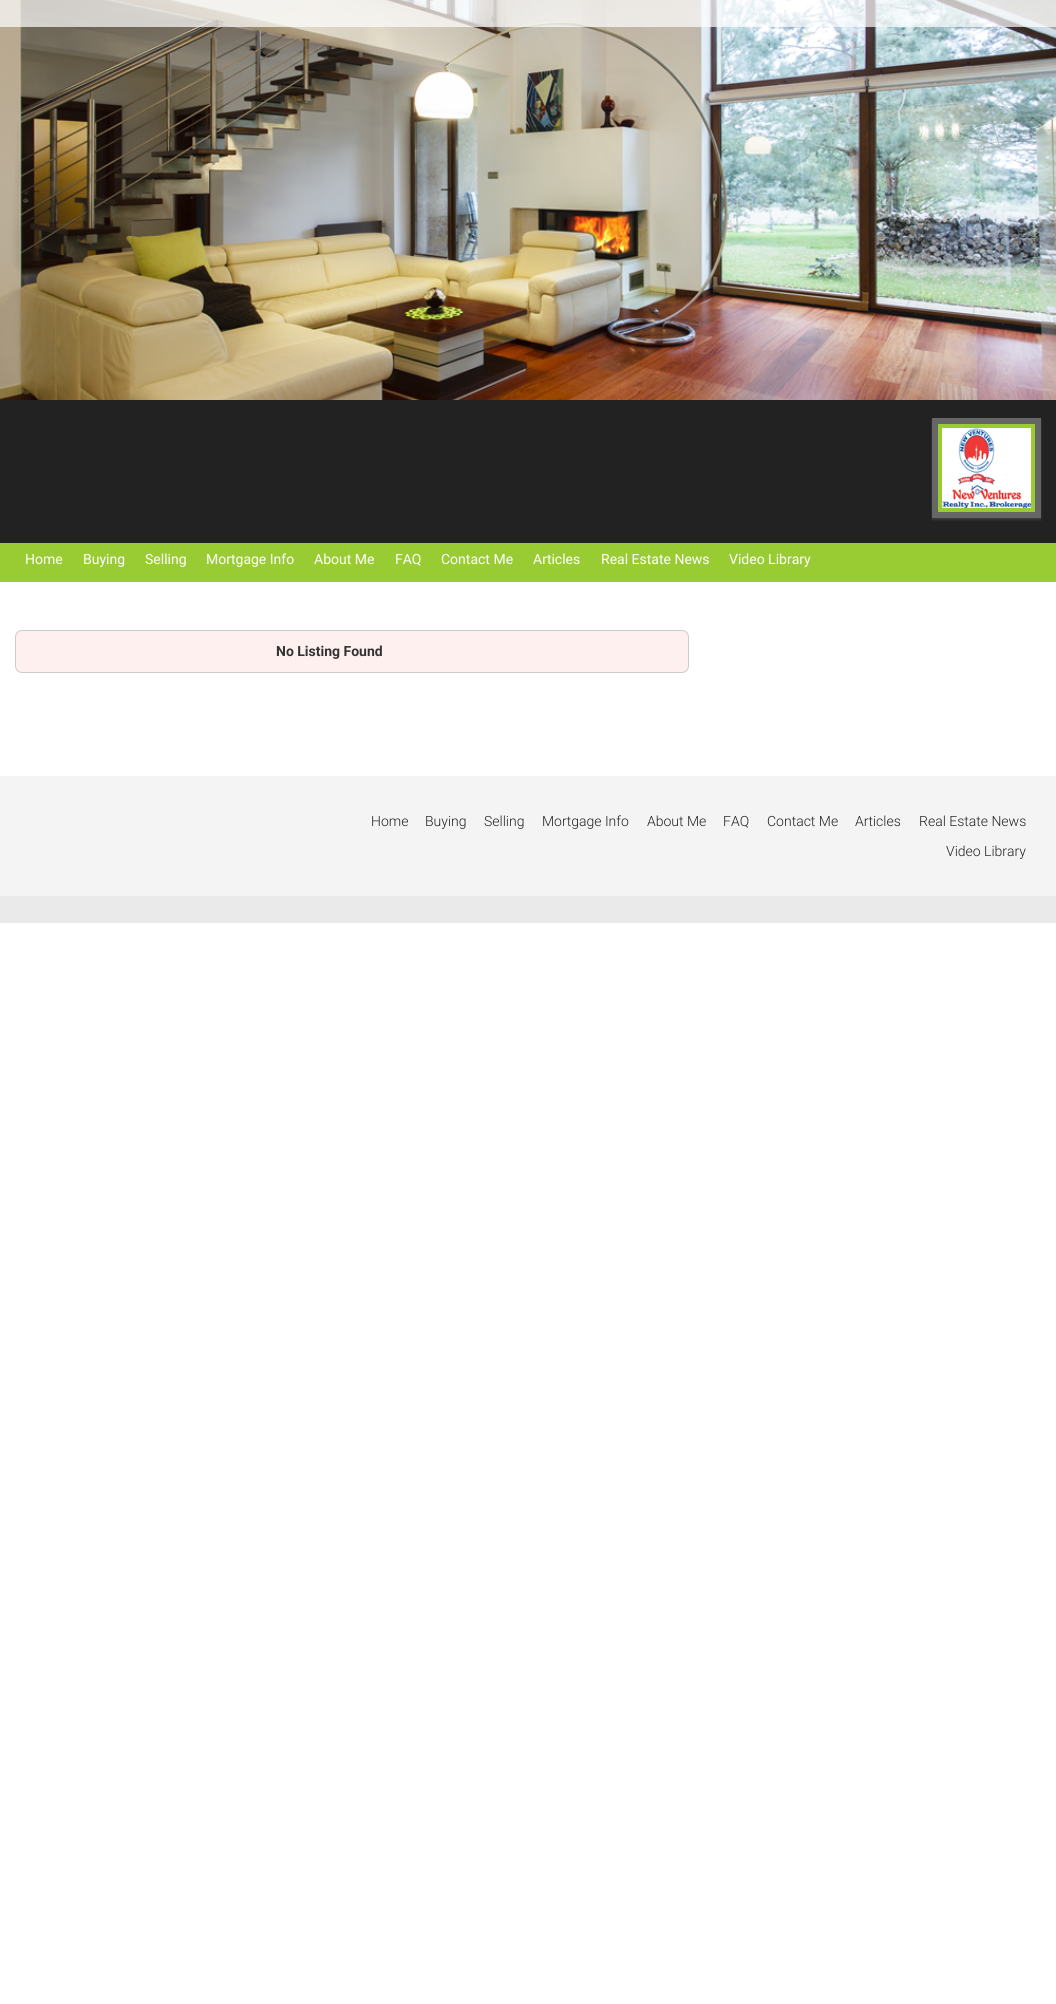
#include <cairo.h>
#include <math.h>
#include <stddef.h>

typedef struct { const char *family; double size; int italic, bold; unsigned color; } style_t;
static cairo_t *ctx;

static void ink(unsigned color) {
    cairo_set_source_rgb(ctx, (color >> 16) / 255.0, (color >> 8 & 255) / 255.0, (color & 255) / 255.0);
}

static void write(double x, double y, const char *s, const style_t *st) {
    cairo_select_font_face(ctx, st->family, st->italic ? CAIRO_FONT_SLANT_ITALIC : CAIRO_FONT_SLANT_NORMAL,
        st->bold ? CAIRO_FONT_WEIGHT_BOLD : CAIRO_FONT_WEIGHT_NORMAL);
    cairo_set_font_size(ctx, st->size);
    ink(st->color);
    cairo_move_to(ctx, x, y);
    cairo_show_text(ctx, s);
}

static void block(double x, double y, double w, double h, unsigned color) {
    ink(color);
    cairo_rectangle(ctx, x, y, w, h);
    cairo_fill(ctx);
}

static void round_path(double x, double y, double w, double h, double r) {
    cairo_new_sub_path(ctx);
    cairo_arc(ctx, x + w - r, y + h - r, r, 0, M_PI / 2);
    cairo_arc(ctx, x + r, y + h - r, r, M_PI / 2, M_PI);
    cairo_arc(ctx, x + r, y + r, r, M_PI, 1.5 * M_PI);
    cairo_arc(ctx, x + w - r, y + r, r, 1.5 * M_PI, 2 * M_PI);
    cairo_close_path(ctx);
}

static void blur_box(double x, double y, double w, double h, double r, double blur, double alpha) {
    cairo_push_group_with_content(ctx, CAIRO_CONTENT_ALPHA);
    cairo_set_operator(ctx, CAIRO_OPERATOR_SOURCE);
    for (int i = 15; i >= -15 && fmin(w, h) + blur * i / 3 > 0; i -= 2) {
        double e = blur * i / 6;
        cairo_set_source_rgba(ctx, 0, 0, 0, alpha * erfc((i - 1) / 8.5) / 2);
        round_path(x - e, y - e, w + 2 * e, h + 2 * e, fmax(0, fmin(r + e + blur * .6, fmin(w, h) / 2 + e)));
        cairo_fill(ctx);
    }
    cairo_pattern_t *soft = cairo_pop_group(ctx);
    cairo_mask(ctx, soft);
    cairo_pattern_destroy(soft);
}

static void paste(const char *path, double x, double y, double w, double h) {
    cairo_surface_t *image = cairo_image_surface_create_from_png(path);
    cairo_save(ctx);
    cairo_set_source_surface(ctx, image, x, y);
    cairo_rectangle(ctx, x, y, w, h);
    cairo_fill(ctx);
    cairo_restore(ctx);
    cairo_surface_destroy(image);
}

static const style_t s1 = {"Roboto", 14, 0, 0, 0xffffff};
static const style_t s2 = {"Roboto", 14, 0, 1, 0x333333};
static const style_t s3 = {"Roboto Light", 14, 0, 0, 0x222222};

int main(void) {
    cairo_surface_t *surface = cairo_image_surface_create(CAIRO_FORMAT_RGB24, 1056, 2004);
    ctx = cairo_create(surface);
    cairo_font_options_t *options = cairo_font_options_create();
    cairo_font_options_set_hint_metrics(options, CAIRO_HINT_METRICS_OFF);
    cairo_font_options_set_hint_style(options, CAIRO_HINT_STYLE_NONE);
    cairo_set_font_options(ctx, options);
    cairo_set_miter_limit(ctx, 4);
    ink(0xffffff);
    cairo_paint(ctx);
    paste("pic1.png", 0, 0, 1056, 400);
    cairo_set_source_rgba(ctx, 1, 1, 1, 0.7);
    cairo_rectangle(ctx, 0, 0, 1056, 27);
    cairo_fill(ctx);
    block(0, 400, 1056, 143, 0x222222);
    ink(0x3a3a3a);
    blur_box(932, 420, 109, 100, 0, 1, 1);
    ink(0x99cc33);
    cairo_rectangle(ctx, 935, 421, 103, 94);
    cairo_fill_preserve(ctx);
    ink(0x666666);
    cairo_set_line_width(ctx, 6);
    cairo_stroke(ctx);
    paste("pic2.png", 942, 428, 89, 80);
    block(0, 543, 1056, 39, 0x99cc33);
    write(25, 564, "Home", &s1);
    write(83, 564, "Buying", &s1);
    write(145, 564, "Selling", &s1);
    write(206, 564, "Mortgage Info", &s1);
    write(314, 564, "About Me", &s1);
    write(395, 564, "FAQ", &s1);
    write(441, 564, "Contact Me", &s1);
    write(533, 564, "Articles", &s1);
    write(601, 564, "Real Estate News", &s1);
    write(729, 564, "Video Library", &s1);
    ink(0xfff0f0);
    round_path(15.5, 630.5, 673, 42, 6.5);
    cairo_fill_preserve(ctx);
    ink(0xcccccc);
    cairo_set_line_width(ctx, 1);
    cairo_stroke(ctx);
    write(276, 656, "No Listing Found", &s2);
    block(0, 776, 1056, 120, 0xf4f4f4);
    write(371, 826, "Home", &s3);
    write(425, 826, "Buying", &s3);
    write(484, 826, "Selling", &s3);
    write(542, 826, "Mortgage Info", &s3);
    write(647, 826, "About Me", &s3);
    write(723, 826, "FAQ", &s3);
    write(767, 826, "Contact Me", &s3);
    write(855, 826, "Articles", &s3);
    write(919, 826, "Real Estate News", &s3);
    write(946, 856, "Video Library", &s3);
    block(0, 896, 1056, 27, 0xeaeaea);
    cairo_surface_write_to_png(surface, "screenshot.png");
    cairo_font_options_destroy(options);
    cairo_destroy(ctx);
    cairo_surface_destroy(surface);
    return 0;
}
